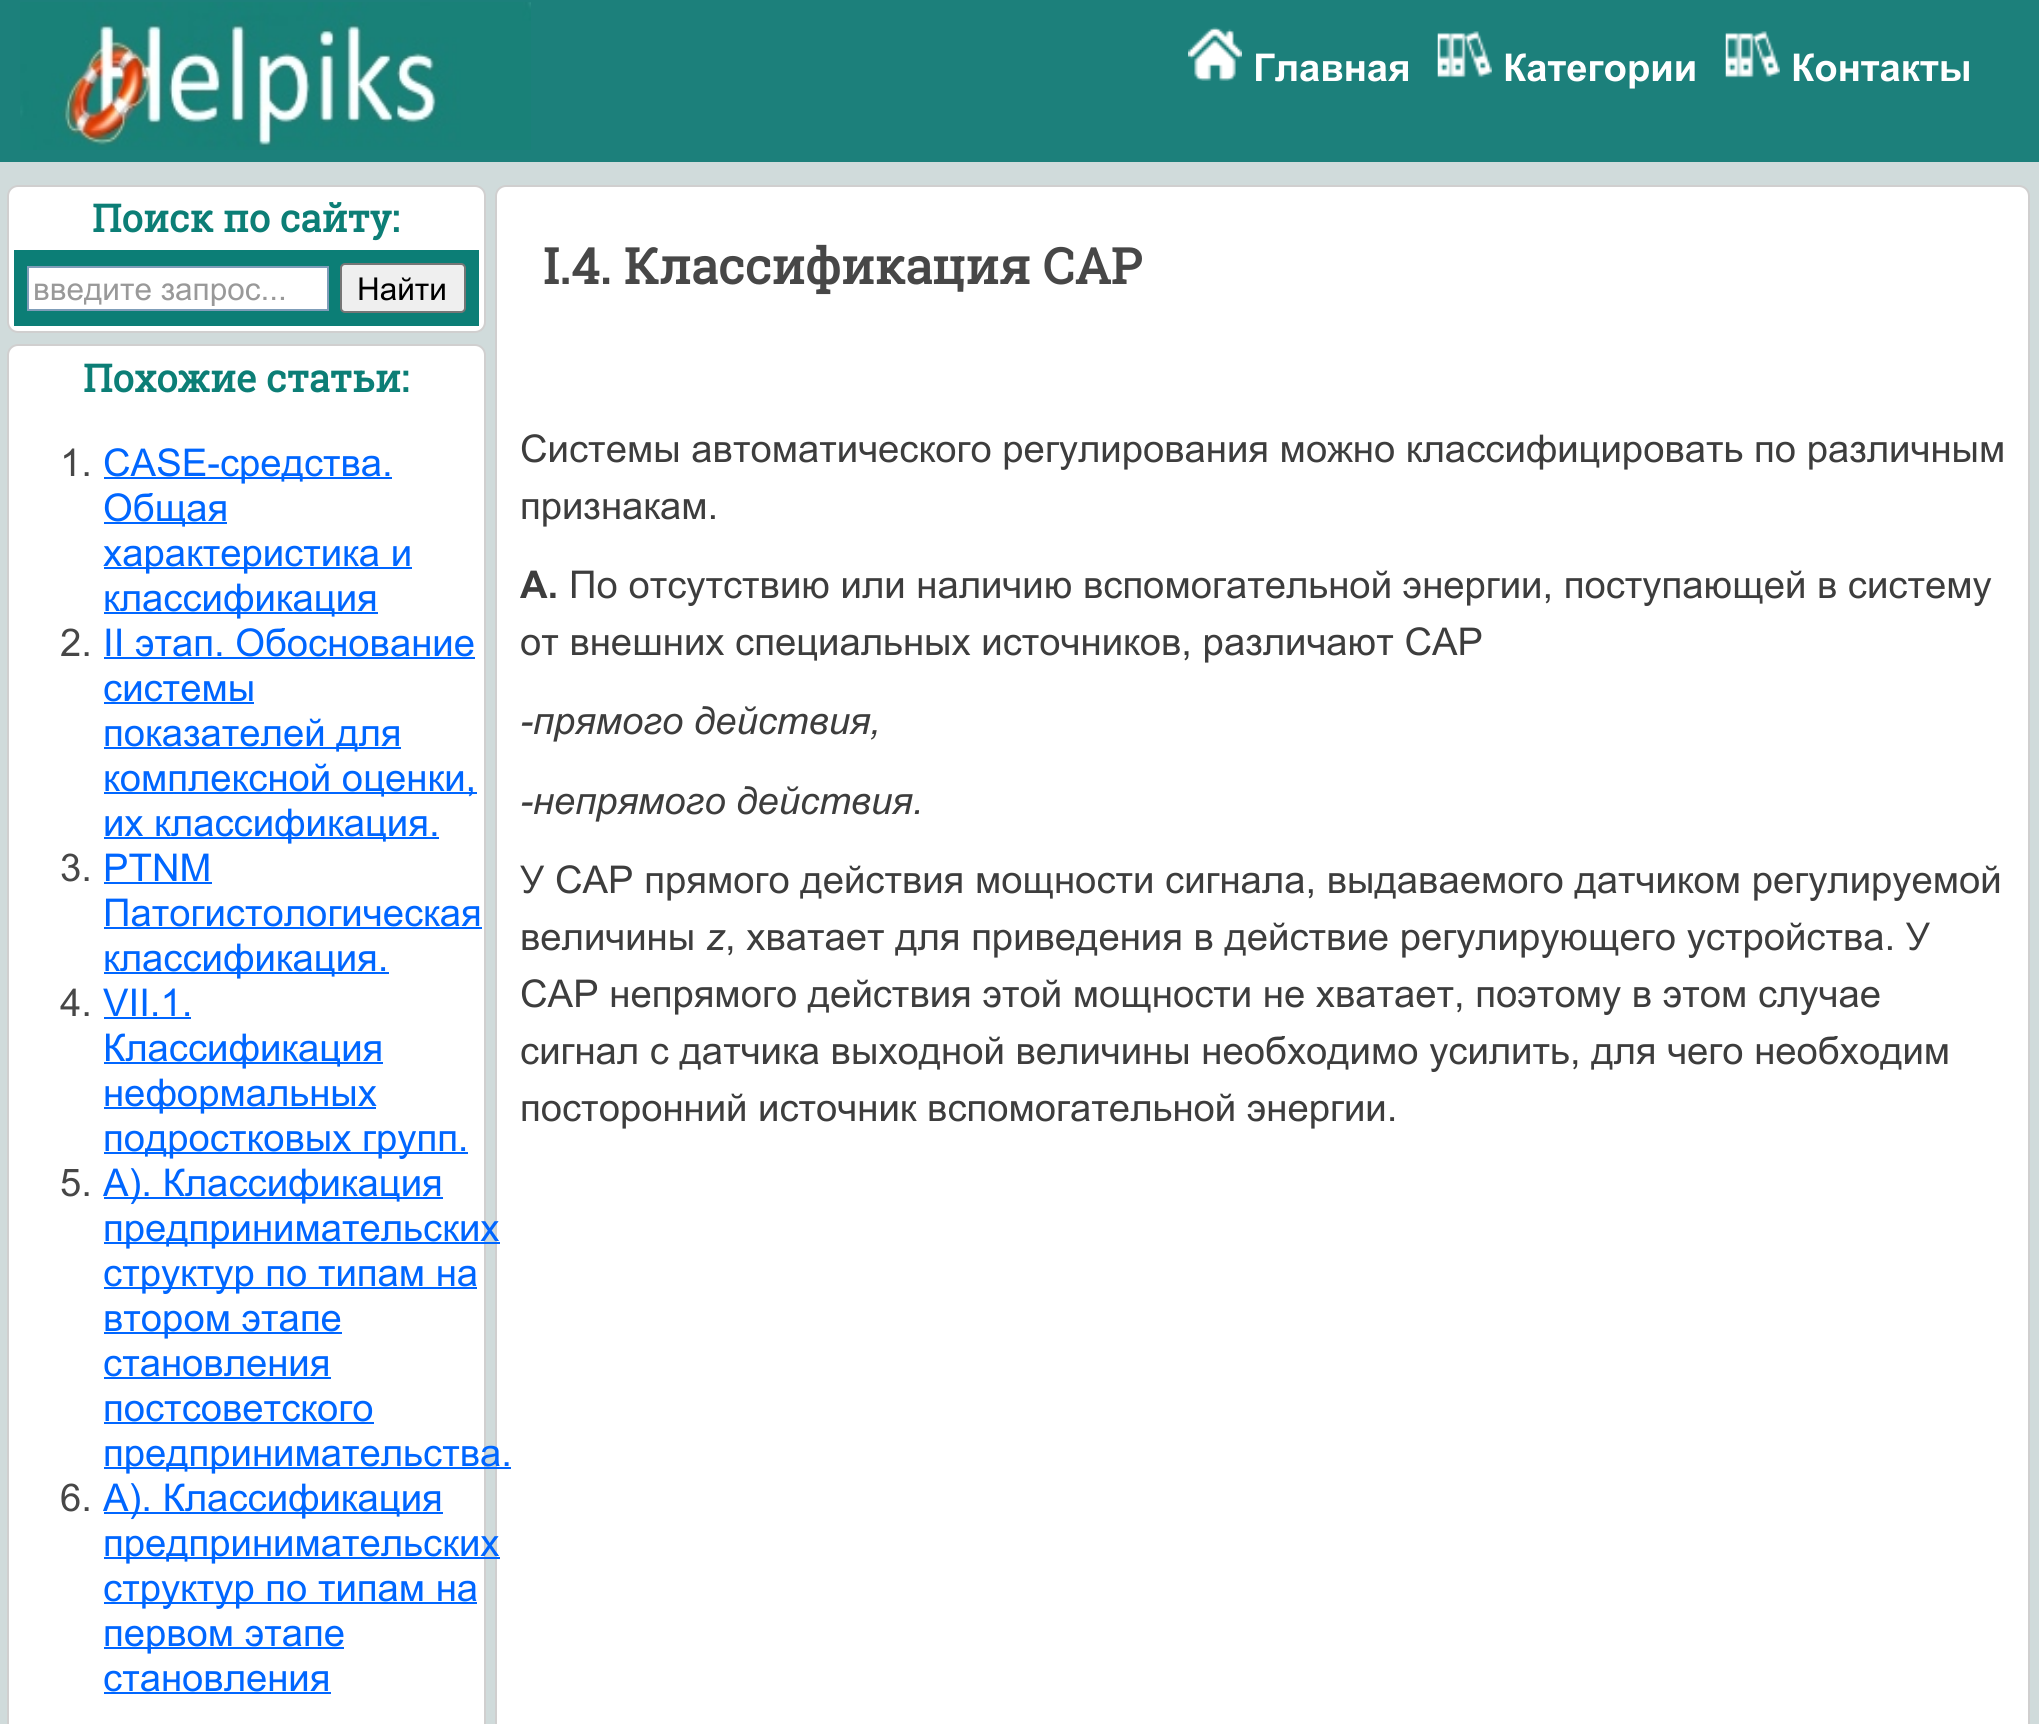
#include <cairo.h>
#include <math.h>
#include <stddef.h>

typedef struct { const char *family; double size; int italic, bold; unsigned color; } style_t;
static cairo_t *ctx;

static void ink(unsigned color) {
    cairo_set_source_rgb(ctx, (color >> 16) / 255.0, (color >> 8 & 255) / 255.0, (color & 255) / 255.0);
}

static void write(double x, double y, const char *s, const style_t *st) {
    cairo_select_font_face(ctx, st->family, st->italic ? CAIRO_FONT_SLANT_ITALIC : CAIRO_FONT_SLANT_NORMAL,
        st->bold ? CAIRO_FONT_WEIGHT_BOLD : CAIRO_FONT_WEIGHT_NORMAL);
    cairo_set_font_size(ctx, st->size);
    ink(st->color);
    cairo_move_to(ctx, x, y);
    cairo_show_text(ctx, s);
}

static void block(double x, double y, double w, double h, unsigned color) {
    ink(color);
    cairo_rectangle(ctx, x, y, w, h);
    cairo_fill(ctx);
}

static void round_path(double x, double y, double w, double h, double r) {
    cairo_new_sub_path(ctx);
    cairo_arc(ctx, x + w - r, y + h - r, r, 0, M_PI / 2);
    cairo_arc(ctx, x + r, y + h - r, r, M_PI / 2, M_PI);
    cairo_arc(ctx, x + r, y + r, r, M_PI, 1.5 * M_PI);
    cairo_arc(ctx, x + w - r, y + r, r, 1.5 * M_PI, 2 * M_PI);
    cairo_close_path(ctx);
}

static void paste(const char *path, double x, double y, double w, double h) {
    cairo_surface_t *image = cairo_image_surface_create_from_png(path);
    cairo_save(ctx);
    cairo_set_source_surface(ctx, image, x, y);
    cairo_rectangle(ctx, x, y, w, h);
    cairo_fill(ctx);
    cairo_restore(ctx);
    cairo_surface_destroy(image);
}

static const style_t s1 = {"Arial", 38.25, 0, 1, 0xffffff};
static const style_t s2 = {"Roboto Slab", 38.25, 0, 1, 0x0c7e76};
static const style_t s3 = {"Arial", 31.5, 0, 0, 0x999999};
static const style_t s4 = {"Arial", 31.5, 0, 0, 0x000000};
static const style_t s5 = {"Arial", 38.25, 0, 0, 0x474747};
static const style_t s6 = {"Arial", 38.25, 0, 0, 0x0066ff};
static const style_t s7 = {"Roboto Slab", 49.5, 0, 1, 0x474747};
static const style_t s8 = {"Arial", 38.25, 0, 0, 0x3d3d3d};
static const style_t s9 = {"Arial", 38.25, 0, 1, 0x3d3d3d};
static const style_t s10 = {"Arial", 38.25, 1, 0, 0x3d3d3d};

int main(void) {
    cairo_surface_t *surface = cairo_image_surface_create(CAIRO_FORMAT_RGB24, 2039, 1724);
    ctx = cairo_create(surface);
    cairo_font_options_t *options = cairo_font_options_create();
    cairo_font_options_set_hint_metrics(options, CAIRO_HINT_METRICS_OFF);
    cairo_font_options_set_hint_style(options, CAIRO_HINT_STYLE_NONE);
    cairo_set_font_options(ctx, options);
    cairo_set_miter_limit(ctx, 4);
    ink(0xd0dbdb);
    cairo_paint(ctx);
    block(0, 0, 2039, 162, 0x1c807b);
    paste("pic1.png", 20, 2, 511, 148);
    paste("pic2.png", 1188, 27, 54, 54);
    write(1253, 81, "Главная", &s1);
    paste("pic3.png", 1437, 31, 55, 47);
    write(1503, 81, "Категории", &s1);
    paste("pic3.png", 1725, 31, 55, 47);
    write(1791, 81, "Контакты", &s1);
    round_path(8, 186, 477, 146, 10);
    cairo_fill_preserve(ctx);
    ink(0xd0cfcf);
    cairo_stroke(ctx);
    write(92, 232, "Поиск по сайту:", &s2);
    block(14, 250, 465, 76, 0x0c7e76);
    ink(0xffffff);
    cairo_rectangle(ctx, 28, 267, 300, 43);
    cairo_fill_preserve(ctx);
    ink(0x7f9db9);
    cairo_stroke(ctx);
    cairo_save(ctx);
    cairo_rectangle(ctx, 34, 270, 256, 36);
    cairo_clip(ctx);
    write(33, 300, "введите запрос...", &s3);
    cairo_restore(ctx);
    ink(0xefefef);
    round_path(341, 264, 124, 48, 4);
    cairo_fill_preserve(ctx);
    ink(0x767676);
    cairo_stroke(ctx);
    write(357, 300, "Найти", &s4);
    ink(0xffffff);
    round_path(8, 345, 477, 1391, 10);
    cairo_fill_preserve(ctx);
    ink(0xd0cfcf);
    cairo_stroke(ctx);
    write(83, 392, "Похожие статьи:", &s2);
    write(60, 476, "1.", &s5);
    block(104, 477, 288, 2, 0x0066ff);
    write(103, 476, "CASE-средства.", &s6);
    block(104, 522, 123, 2, 0x0066ff);
    write(103, 521, "Общая", &s6);
    block(104, 567, 308, 2, 0x0066ff);
    write(103, 566, "характеристика и", &s6);
    block(104, 612, 274, 2, 0x0066ff);
    write(103, 611, "классификация", &s6);
    write(60, 656, "2.", &s5);
    write(103, 656, "II этап. Обоснование", &s6);
    block(104, 657, 371, 2, 0x0066ff);
    write(103, 701, "системы", &s6);
    block(104, 702, 150, 2, 0x0066ff);
    block(104, 747, 297, 2, 0x0066ff);
    write(103, 746, "показателей для", &s6);
    block(104, 792, 373, 2, 0x0066ff);
    write(103, 791, "комплексной оценки,", &s6);
    block(104, 837, 335, 2, 0x0066ff);
    write(103, 836, "их классификация.", &s6);
    write(60, 881, "3.", &s5);
    write(103, 881, "PTNM", &s6);
    block(104, 882, 108, 2, 0x0066ff);
    write(103, 926, "Патогистологическая", &s6);
    block(104, 927, 378, 2, 0x0066ff);
    block(104, 972, 285, 2, 0x0066ff);
    write(103, 971, "классификация.", &s6);
    write(60, 1016, "4.", &s5);
    write(103, 1016, "VII.1.", &s6);
    block(104, 1017, 87, 2, 0x0066ff);
    block(104, 1062, 279, 2, 0x0066ff);
    write(103, 1061, "Классификация", &s6);
    block(104, 1107, 272, 2, 0x0066ff);
    write(103, 1106, "неформальных", &s6);
    block(104, 1152, 364, 2, 0x0066ff);
    write(103, 1151, "подростковых групп.", &s6);
    write(60, 1196, "5.", &s5);
    block(104, 1197, 339, 2, 0x0066ff);
    write(103, 1196, "А). Классификация", &s6);
    ink(0xffffff);
    round_path(496, 186, 1533, 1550, 10);
    cairo_fill_preserve(ctx);
    ink(0xd0cfcf);
    cairo_stroke(ctx);
    block(104, 1242, 396, 2, 0x0066ff);
    write(103, 1241, "предпринимательских", &s6);
    block(104, 1287, 373, 2, 0x0066ff);
    write(103, 1286, "структур по типам на", &s6);
    block(104, 1332, 238, 2, 0x0066ff);
    write(103, 1331, "втором этапе", &s6);
    write(103, 1376, "становления", &s6);
    block(104, 1377, 227, 2, 0x0066ff);
    write(103, 1421, "постсоветского", &s6);
    block(104, 1422, 270, 2, 0x0066ff);
    block(104, 1467, 407, 2, 0x0066ff);
    write(103, 1466, "предпринимательства.", &s6);
    write(60, 1511, "6.", &s5);
    block(104, 1512, 339, 2, 0x0066ff);
    write(103, 1511, "А). Классификация", &s6);
    block(104, 1557, 396, 2, 0x0066ff);
    write(103, 1556, "предпринимательских", &s6);
    block(104, 1602, 373, 2, 0x0066ff);
    write(103, 1601, "структур по типам на", &s6);
    block(104, 1647, 240, 2, 0x0066ff);
    write(103, 1646, "первом этапе", &s6);
    write(103, 1691, "становления", &s6);
    block(104, 1692, 227, 2, 0x0066ff);
    write(543, 284, "I.4. Классификация САР", &s7);
    write(520, 462, "Системы автоматического регулирования можно классифицировать по различным", &s8);
    write(520, 519, "признакам.", &s8);
    write(520, 598, "А.", &s9);
    write(569, 598, "По отсутствию или наличию вспомогательной энергии, поступающей в систему", &s8);
    write(520, 655, "от внешних специальных источников, различают САР", &s8);
    write(520, 734, "-прямого действия,", &s10);
    write(520, 814, "-непрямого действия.", &s10);
    write(520, 893, "У САР прямого действия мощности сигнала, выдаваемого датчиком регулируемой", &s8);
    write(520, 950, "величины", &s8);
    write(706, 950, "z", &s10);
    write(725, 950, ", хватает для приведения в действие регулирующего устройства. У", &s8);
    write(520, 1007, "САР непрямого действия этой мощности не хватает, поэтому в этом случае", &s8);
    write(520, 1064, "сигнал с датчика выходной величины необходимо усилить, для чего необходим", &s8);
    write(520, 1121, "посторонний источник вспомогательной энергии.", &s8);
    cairo_surface_write_to_png(surface, "screenshot.png");
    cairo_font_options_destroy(options);
    cairo_destroy(ctx);
    cairo_surface_destroy(surface);
    return 0;
}
